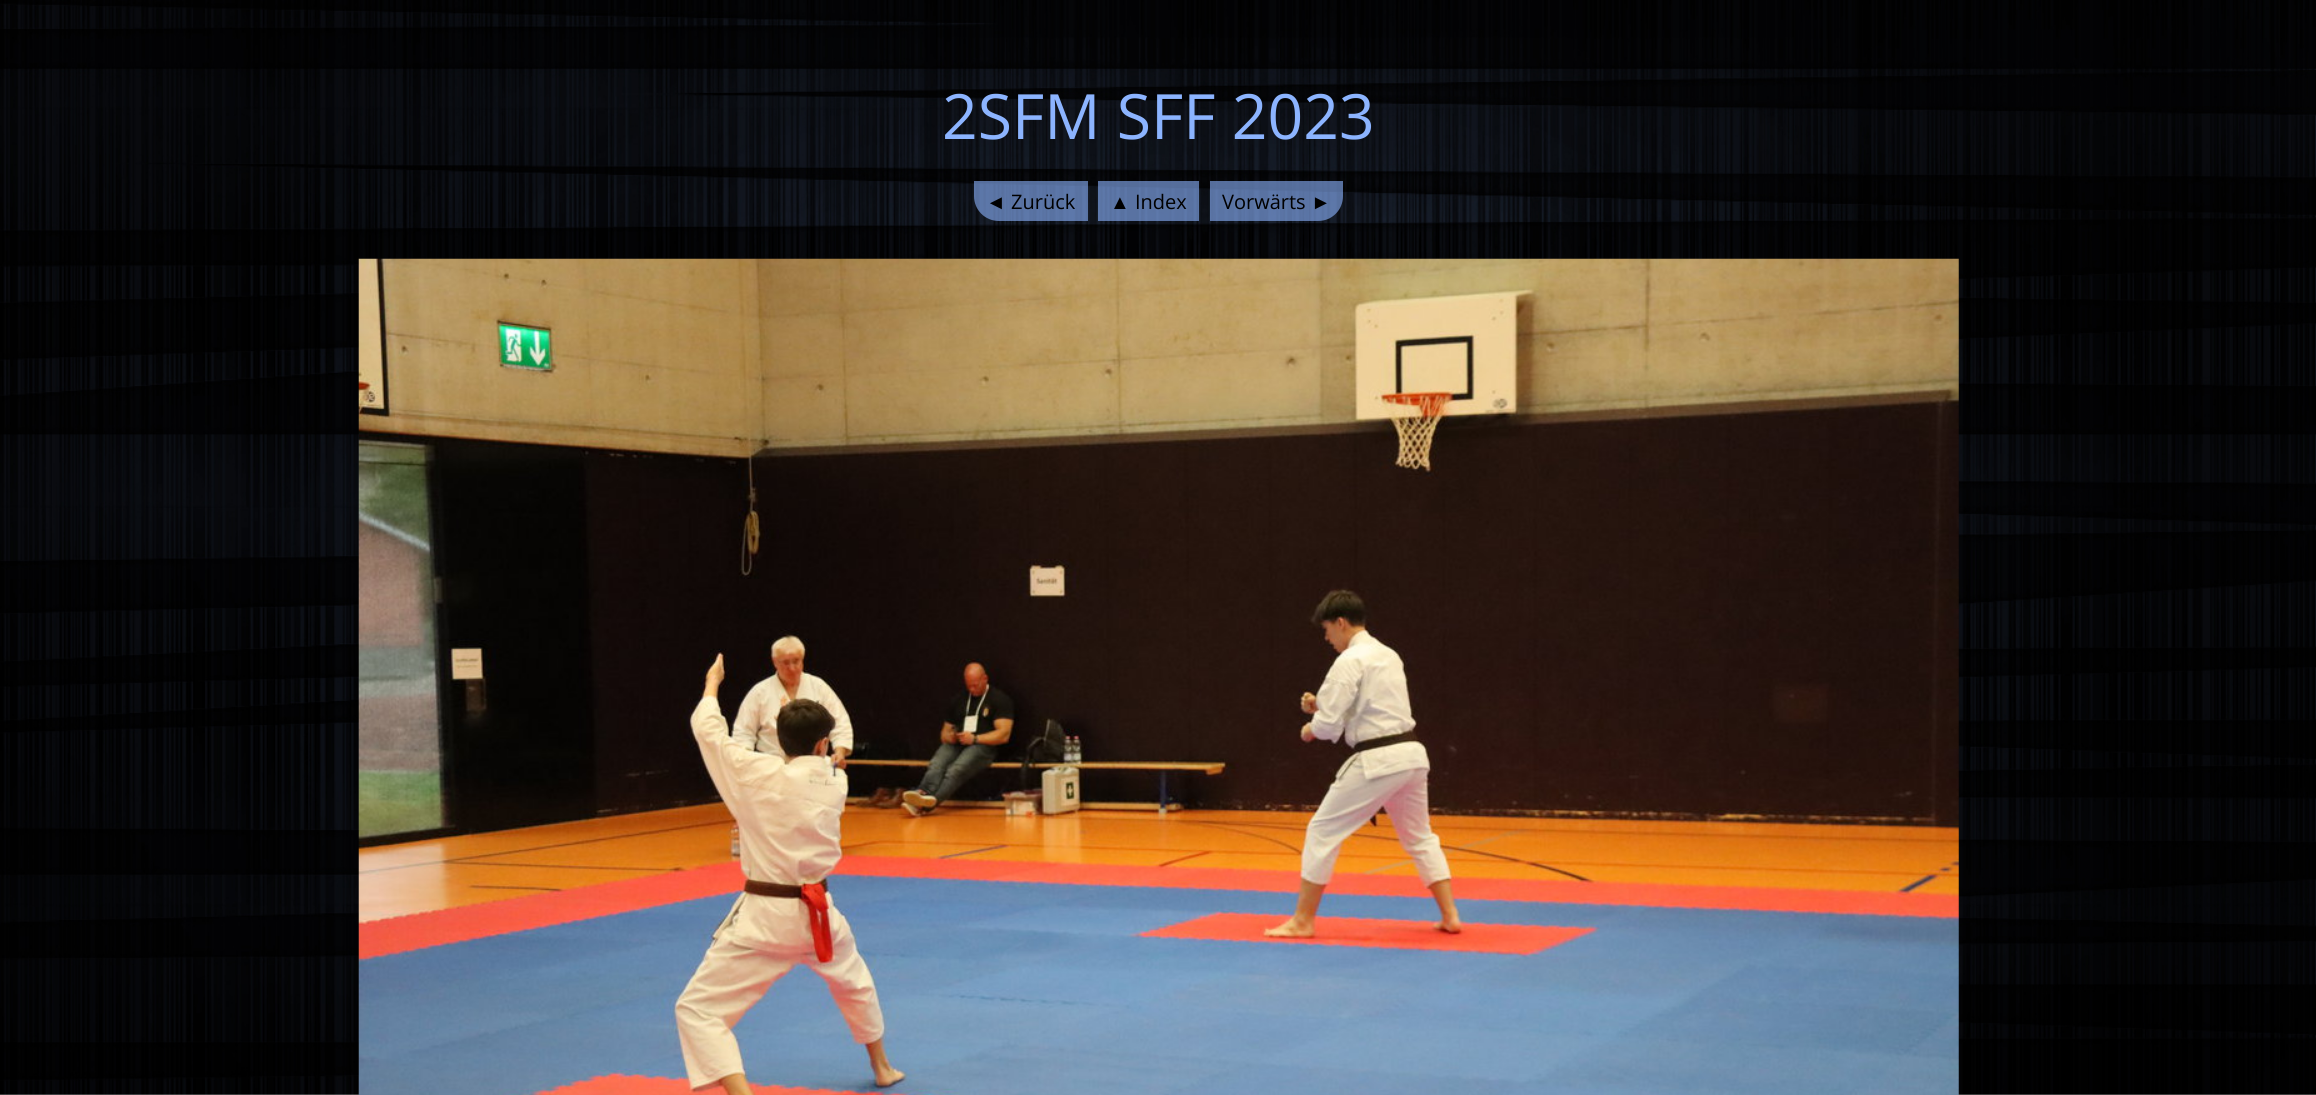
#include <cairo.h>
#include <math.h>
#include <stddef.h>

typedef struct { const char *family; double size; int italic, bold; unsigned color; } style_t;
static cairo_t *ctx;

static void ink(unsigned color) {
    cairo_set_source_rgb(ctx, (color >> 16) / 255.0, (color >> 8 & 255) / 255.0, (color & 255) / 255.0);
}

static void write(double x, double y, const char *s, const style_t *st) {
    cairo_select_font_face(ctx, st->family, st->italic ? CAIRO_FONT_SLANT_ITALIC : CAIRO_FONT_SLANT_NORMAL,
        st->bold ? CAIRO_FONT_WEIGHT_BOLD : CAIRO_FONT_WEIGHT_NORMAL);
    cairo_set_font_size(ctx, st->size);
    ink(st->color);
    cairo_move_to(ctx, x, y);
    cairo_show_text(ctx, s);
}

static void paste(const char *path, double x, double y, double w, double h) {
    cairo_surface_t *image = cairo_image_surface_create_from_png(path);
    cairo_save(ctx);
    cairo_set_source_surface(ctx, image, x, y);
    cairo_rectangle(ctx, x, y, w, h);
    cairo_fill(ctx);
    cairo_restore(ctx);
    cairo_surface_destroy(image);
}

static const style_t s1 = {"Open Sans", 62.5, 0, 0, 0x8cb4ff};
static const style_t s2 = {"Liberation Sans", 20, 0, 0, 0x000000};
static const style_t s3 = {"Open Sans", 20, 0, 0, 0x000000};

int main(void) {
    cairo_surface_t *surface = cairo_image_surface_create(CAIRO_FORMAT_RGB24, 2316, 1095);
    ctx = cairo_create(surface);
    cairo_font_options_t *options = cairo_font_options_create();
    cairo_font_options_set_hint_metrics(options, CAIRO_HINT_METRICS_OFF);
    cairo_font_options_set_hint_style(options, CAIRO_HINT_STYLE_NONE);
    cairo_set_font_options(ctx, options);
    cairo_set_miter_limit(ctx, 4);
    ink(0xffffff);
    cairo_paint(ctx);
    paste("pic1.png", 0, 0, 2316, 1095);
    write(942, 139, "2SFM SFF 2023", &s1);
    cairo_set_source_rgba(ctx, 0.549, 0.706, 1, 0.6);
    cairo_new_path(ctx);
    cairo_move_to(ctx, 974, 181);
    cairo_line_to(ctx, 1088, 181);
    cairo_line_to(ctx, 1088, 221);
    cairo_line_to(ctx, 999, 221);
    cairo_curve_to(ctx, 985, 221, 974, 210, 974, 196);
    cairo_close_path(ctx);
    cairo_fill(ctx);
    write(986, 209, "◄", &s2);
    write(1011, 209, "Zurück", &s3);
    cairo_set_source_rgba(ctx, 0.549, 0.706, 1, 0.6);
    cairo_rectangle(ctx, 1098, 181, 101, 40);
    cairo_fill(ctx);
    write(1110, 209, "▲", &s2);
    write(1135, 209, "Index", &s3);
    cairo_set_source_rgba(ctx, 0.549, 0.706, 1, 0.6);
    cairo_new_path(ctx);
    cairo_move_to(ctx, 1210, 181);
    cairo_line_to(ctx, 1343, 181);
    cairo_line_to(ctx, 1343, 196);
    cairo_curve_to(ctx, 1343, 210, 1332, 221, 1318, 221);
    cairo_line_to(ctx, 1210, 221);
    cairo_close_path(ctx);
    cairo_fill(ctx);
    write(1222, 209, "Vorwärts", &s3);
    write(1311, 209, "►", &s2);
    paste("pic2.png", 358, 258, 1601, 837);
    cairo_surface_write_to_png(surface, "screenshot.png");
    cairo_font_options_destroy(options);
    cairo_destroy(ctx);
    cairo_surface_destroy(surface);
    return 0;
}
